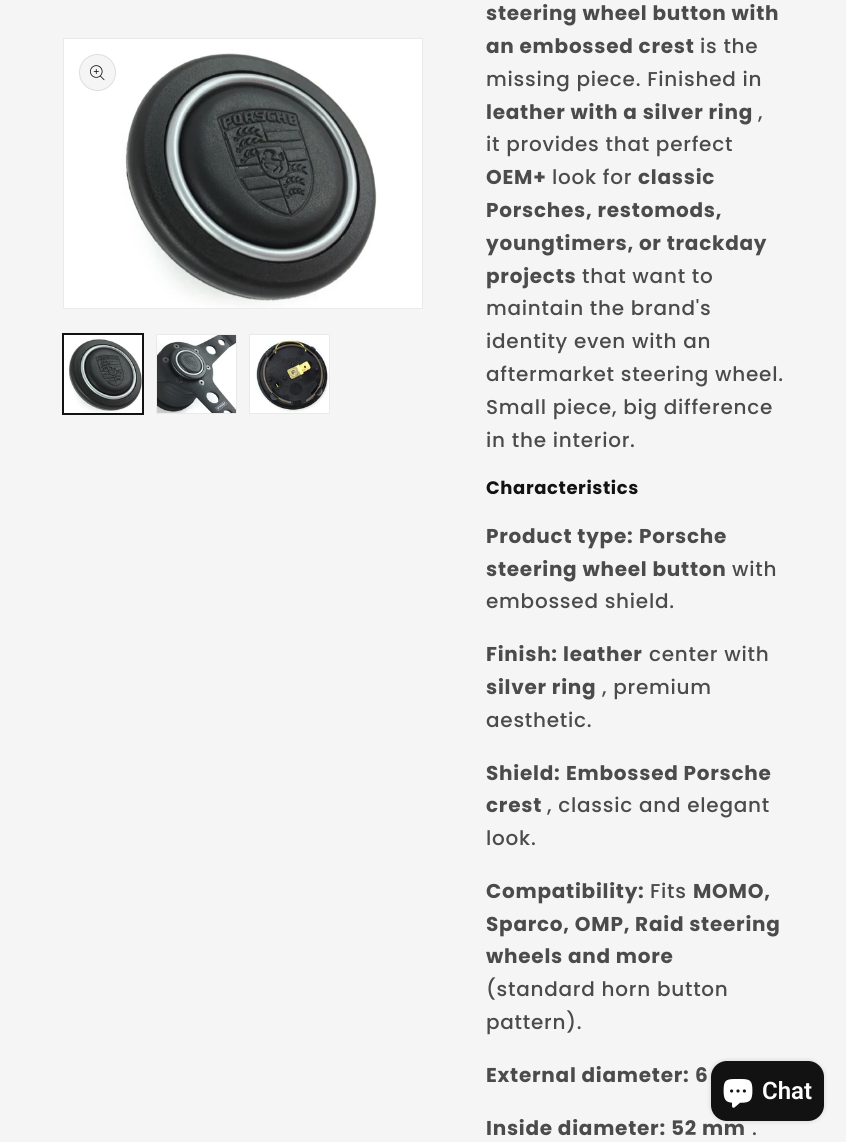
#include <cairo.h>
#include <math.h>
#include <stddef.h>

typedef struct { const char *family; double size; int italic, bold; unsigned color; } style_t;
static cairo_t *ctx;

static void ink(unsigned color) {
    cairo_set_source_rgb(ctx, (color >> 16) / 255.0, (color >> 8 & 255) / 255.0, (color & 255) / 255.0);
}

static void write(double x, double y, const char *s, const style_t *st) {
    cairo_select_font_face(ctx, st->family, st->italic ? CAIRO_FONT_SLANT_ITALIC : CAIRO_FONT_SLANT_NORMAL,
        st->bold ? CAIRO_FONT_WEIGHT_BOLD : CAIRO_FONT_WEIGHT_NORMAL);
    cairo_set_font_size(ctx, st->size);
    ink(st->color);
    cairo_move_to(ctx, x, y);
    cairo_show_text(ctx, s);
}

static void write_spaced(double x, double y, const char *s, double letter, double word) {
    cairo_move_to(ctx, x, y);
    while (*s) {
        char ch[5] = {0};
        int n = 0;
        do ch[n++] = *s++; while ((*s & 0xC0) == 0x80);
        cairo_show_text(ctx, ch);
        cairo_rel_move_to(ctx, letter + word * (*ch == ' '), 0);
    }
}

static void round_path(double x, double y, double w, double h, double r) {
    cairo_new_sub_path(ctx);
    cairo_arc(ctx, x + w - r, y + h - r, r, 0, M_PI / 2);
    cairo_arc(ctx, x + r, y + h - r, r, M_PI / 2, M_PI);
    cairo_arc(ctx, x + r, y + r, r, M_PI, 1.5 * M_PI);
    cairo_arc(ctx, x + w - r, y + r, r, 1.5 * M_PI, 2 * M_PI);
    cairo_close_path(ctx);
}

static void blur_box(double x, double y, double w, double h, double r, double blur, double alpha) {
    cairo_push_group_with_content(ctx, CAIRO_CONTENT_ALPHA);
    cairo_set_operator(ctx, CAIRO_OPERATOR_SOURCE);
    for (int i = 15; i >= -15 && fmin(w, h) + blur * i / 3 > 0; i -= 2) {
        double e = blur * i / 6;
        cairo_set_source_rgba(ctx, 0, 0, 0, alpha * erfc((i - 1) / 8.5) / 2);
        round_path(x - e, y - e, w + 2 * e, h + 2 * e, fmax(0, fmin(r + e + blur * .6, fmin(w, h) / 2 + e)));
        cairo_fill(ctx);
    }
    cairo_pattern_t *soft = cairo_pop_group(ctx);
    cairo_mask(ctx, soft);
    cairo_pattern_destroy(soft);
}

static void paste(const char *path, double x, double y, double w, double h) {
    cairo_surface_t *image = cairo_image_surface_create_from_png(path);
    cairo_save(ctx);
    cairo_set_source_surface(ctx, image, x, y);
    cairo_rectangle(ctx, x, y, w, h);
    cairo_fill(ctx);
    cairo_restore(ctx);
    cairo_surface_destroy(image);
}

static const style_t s1 = {"Roboto SemiBold", 24, 0, 0, 0xffffff};

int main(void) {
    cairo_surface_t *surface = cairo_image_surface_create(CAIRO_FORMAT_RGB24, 846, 1142);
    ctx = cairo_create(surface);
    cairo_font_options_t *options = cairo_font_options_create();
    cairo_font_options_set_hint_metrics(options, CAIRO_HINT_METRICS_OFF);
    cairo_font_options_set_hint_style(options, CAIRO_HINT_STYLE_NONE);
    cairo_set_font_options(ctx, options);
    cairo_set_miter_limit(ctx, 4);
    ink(0xf5f5f5);
    cairo_paint(ctx);
    cairo_rectangle(ctx, 63.5, 38.5, 359, 270);
    ink(0xeaeaea);
    cairo_set_line_width(ctx, 1);
    cairo_stroke(ctx);
    paste("pic1.png", 64, 39, 358, 269);
    ink(0xf5f5f5);
    cairo_arc(ctx, 97.5, 72.5, 18.5, 0, 2 * M_PI);
    cairo_fill(ctx);
    cairo_arc(ctx, 97.5, 72.5, 18, 0, 2 * M_PI);
    cairo_set_source_rgba(ctx, 0.071, 0.071, 0.071, 0.1);
    cairo_stroke(ctx);
    paste("pic2.png", 90, 65, 15, 16);
    cairo_rectangle(ctx, 62.5, 333.5, 81, 81);
    ink(0x121212);
    cairo_stroke(ctx);
    cairo_rectangle(ctx, 63.5, 334.5, 79, 79);
    cairo_stroke(ctx);
    paste("pic3.png", 64, 335, 78, 78);
    cairo_rectangle(ctx, 156.5, 334.5, 80, 79);
    ink(0xeaeaea);
    cairo_stroke(ctx);
    paste("pic4.png", 157, 335, 79, 78);
    cairo_rectangle(ctx, 249.5, 334.5, 80, 79);
    cairo_stroke(ctx);
    paste("pic5.png", 250, 335, 79, 78);
    cairo_select_font_face(ctx, "Poppins", CAIRO_FONT_SLANT_NORMAL, CAIRO_FONT_WEIGHT_BOLD);
    cairo_set_font_size(ctx, 20);
    ink(0x4b4b4b);
    write_spaced(486, 20, "steering wheel button with", 0.75, 0);
    write_spaced(486, 53, "an embossed crest", 0.75, 0);
    cairo_select_font_face(ctx, "Poppins Medium", CAIRO_FONT_SLANT_NORMAL, CAIRO_FONT_WEIGHT_NORMAL);
    write_spaced(700, 53, "is the", 0.75, 0);
    write_spaced(486, 86, "missing piece. Finished in", 0.75, 0);
    cairo_select_font_face(ctx, "Poppins", CAIRO_FONT_SLANT_NORMAL, CAIRO_FONT_WEIGHT_BOLD);
    write_spaced(486, 119, "leather with a silver ring", 0.75, 0);
    cairo_select_font_face(ctx, "Poppins Medium", CAIRO_FONT_SLANT_NORMAL, CAIRO_FONT_WEIGHT_NORMAL);
    write_spaced(758, 119, ",", 0.75, 0);
    write_spaced(486, 151, "it provides that perfect", 0.75, 0);
    cairo_select_font_face(ctx, "Poppins", CAIRO_FONT_SLANT_NORMAL, CAIRO_FONT_WEIGHT_BOLD);
    write_spaced(486, 184, "OEM+", 0.75, 0);
    cairo_select_font_face(ctx, "Poppins Medium", CAIRO_FONT_SLANT_NORMAL, CAIRO_FONT_WEIGHT_NORMAL);
    write_spaced(552, 184, "look for", 0.75, 0);
    cairo_select_font_face(ctx, "Poppins", CAIRO_FONT_SLANT_NORMAL, CAIRO_FONT_WEIGHT_BOLD);
    write_spaced(638, 184, "classic", 0.75, 0);
    write_spaced(486, 217, "Porsches, restomods,", 0.75, 0);
    write_spaced(486, 250, "youngtimers, or trackday", 0.75, 0);
    write_spaced(486, 283, "projects", 0.75, 0);
    cairo_select_font_face(ctx, "Poppins Medium", CAIRO_FONT_SLANT_NORMAL, CAIRO_FONT_WEIGHT_NORMAL);
    write_spaced(582, 283, "that want to", 0.75, 0);
    write_spaced(486, 315, "maintain the brand's", 0.75, 0);
    write_spaced(486, 348, "identity even with an", 0.75, 0);
    write_spaced(486, 381, "aftermarket steering wheel.", 0.75, 0);
    write_spaced(486, 414, "Small piece, big difference", 0.75, 0);
    write_spaced(486, 447, "in the interior.", 0.75, 0);
    cairo_select_font_face(ctx, "Poppins", CAIRO_FONT_SLANT_NORMAL, CAIRO_FONT_WEIGHT_BOLD);
    cairo_set_font_size(ctx, 18);
    ink(0x121212);
    write_spaced(486, 494, "Characteristics", 0.6, 0);
    cairo_set_font_size(ctx, 20);
    ink(0x4b4b4b);
    write_spaced(486, 543, "Product type:", 0.75, 0);
    write_spaced(639, 543, "Porsche", 0.75, 0);
    write_spaced(486, 576, "steering wheel button", 0.75, 0);
    cairo_select_font_face(ctx, "Poppins Medium", CAIRO_FONT_SLANT_NORMAL, CAIRO_FONT_WEIGHT_NORMAL);
    write_spaced(732, 576, "with", 0.75, 0);
    write_spaced(486, 608, "embossed shield.", 0.75, 0);
    cairo_select_font_face(ctx, "Poppins", CAIRO_FONT_SLANT_NORMAL, CAIRO_FONT_WEIGHT_BOLD);
    write_spaced(486, 661, "Finish:", 0.75, 0);
    write_spaced(563, 661, "leather", 0.75, 0);
    cairo_select_font_face(ctx, "Poppins Medium", CAIRO_FONT_SLANT_NORMAL, CAIRO_FONT_WEIGHT_NORMAL);
    write_spaced(649, 661, "center with", 0.75, 0);
    cairo_select_font_face(ctx, "Poppins", CAIRO_FONT_SLANT_NORMAL, CAIRO_FONT_WEIGHT_BOLD);
    write_spaced(486, 694, "silver ring", 0.75, 0);
    cairo_select_font_face(ctx, "Poppins Medium", CAIRO_FONT_SLANT_NORMAL, CAIRO_FONT_WEIGHT_NORMAL);
    write_spaced(602, 694, ", premium", 0.75, 0);
    write_spaced(486, 727, "aesthetic.", 0.75, 0);
    cairo_select_font_face(ctx, "Poppins", CAIRO_FONT_SLANT_NORMAL, CAIRO_FONT_WEIGHT_BOLD);
    write_spaced(486, 780, "Shield:", 0.75, 0);
    write_spaced(566, 780, "Embossed Porsche", 0.75, 0);
    write_spaced(486, 812, "crest", 0.75, 0);
    cairo_select_font_face(ctx, "Poppins Medium", CAIRO_FONT_SLANT_NORMAL, CAIRO_FONT_WEIGHT_NORMAL);
    write_spaced(547, 812, ", classic and elegant", 0.75, 0);
    write_spaced(486, 845, "look.", 0.75, 0);
    cairo_select_font_face(ctx, "Poppins", CAIRO_FONT_SLANT_NORMAL, CAIRO_FONT_WEIGHT_BOLD);
    write_spaced(486, 898, "Compatibility:", 0.75, 0);
    cairo_select_font_face(ctx, "Poppins Medium", CAIRO_FONT_SLANT_NORMAL, CAIRO_FONT_WEIGHT_NORMAL);
    write_spaced(650, 898, "Fits", 0.75, 0);
    cairo_select_font_face(ctx, "Poppins", CAIRO_FONT_SLANT_NORMAL, CAIRO_FONT_WEIGHT_BOLD);
    write_spaced(693, 898, "MOMO,", 0.75, 0);
    write_spaced(486, 931, "Sparco, OMP, Raid steering", 0.75, 0);
    write_spaced(486, 963, "wheels and more", 0.75, 0);
    cairo_select_font_face(ctx, "Poppins Medium", CAIRO_FONT_SLANT_NORMAL, CAIRO_FONT_WEIGHT_NORMAL);
    write_spaced(486, 996, "(standard horn button", 0.75, 0);
    write_spaced(486, 1029, "pattern).", 0.75, 0);
    cairo_select_font_face(ctx, "Poppins", CAIRO_FONT_SLANT_NORMAL, CAIRO_FONT_WEIGHT_BOLD);
    write_spaced(486, 1082, "External diameter:", 0.75, 0);
    write_spaced(695, 1082, "6", 0.75, 0);
    write_spaced(486, 1135, "Inside diameter:", 0.75, 0);
    write_spaced(671, 1135, "52 mm", 0.75, 0);
    cairo_select_font_face(ctx, "Poppins Medium", CAIRO_FONT_SLANT_NORMAL, CAIRO_FONT_WEIGHT_NORMAL);
    write_spaced(752, 1135, ".", 0.75, 0);
    ink(0x000000);
    blur_box(711, 1061, 113, 60, 16, 2.5, 0.15);
    ink(0x121212);
    round_path(711, 1061, 113, 60, 16);
    cairo_fill(ctx);
    paste("pic6.png", 723, 1079, 30, 29);
    write(762, 1099, "Chat", &s1);
    cairo_surface_write_to_png(surface, "screenshot.png");
    cairo_font_options_destroy(options);
    cairo_destroy(ctx);
    cairo_surface_destroy(surface);
    return 0;
}
